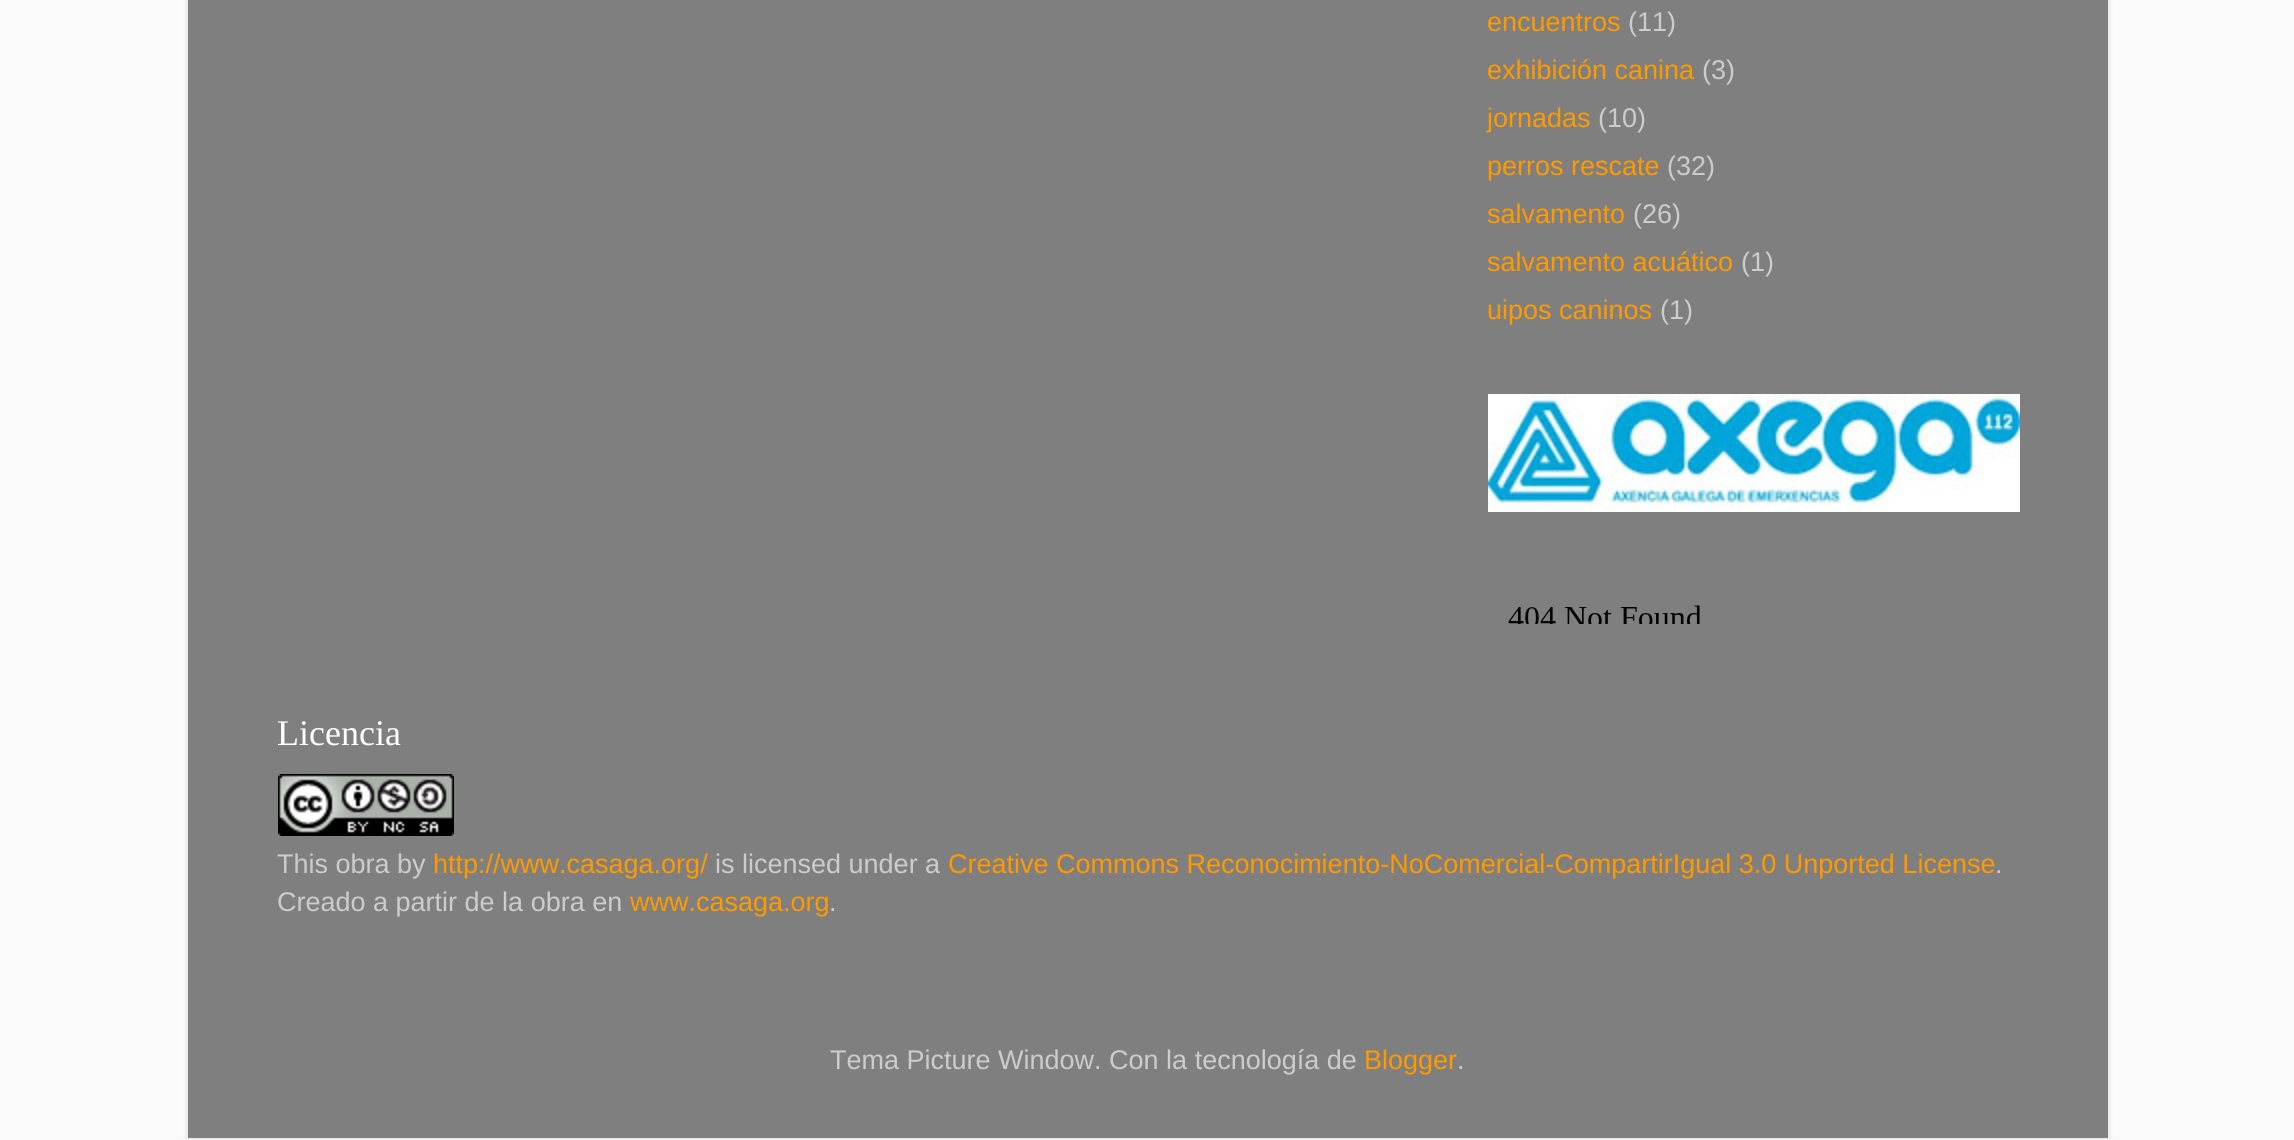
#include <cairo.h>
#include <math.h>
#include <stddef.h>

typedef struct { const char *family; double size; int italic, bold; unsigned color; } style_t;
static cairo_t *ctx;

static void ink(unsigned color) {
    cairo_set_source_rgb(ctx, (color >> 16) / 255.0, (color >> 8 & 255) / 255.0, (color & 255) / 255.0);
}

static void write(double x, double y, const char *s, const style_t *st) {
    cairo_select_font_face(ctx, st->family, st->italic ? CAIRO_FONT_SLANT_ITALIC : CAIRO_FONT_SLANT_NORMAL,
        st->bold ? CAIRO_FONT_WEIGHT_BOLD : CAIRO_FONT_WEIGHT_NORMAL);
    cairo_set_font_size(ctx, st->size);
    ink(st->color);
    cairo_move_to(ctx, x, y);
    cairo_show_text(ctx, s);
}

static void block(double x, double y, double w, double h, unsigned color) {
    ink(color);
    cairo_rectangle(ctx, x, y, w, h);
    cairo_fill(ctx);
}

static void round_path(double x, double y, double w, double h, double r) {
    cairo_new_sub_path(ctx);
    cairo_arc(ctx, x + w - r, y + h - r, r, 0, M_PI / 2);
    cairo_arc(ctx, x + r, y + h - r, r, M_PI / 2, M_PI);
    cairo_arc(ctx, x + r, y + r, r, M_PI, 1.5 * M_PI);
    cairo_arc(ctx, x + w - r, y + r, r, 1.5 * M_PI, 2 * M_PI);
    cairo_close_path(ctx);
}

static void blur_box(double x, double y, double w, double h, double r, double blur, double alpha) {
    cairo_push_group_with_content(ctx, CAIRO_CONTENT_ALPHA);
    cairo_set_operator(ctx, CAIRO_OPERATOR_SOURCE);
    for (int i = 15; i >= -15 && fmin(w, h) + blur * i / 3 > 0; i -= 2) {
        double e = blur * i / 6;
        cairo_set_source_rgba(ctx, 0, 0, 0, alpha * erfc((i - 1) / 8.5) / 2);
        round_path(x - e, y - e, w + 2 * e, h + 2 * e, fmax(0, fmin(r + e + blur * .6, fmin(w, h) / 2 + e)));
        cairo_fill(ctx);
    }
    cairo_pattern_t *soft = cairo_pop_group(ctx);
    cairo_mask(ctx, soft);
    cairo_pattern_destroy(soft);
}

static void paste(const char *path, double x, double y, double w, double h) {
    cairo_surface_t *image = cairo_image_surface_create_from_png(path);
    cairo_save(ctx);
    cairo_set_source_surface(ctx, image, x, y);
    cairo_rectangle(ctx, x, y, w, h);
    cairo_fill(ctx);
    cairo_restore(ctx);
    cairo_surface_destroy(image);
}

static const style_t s1 = {"Liberation Sans", 27, 0, 0, 0xff9900};
static const style_t s2 = {"Liberation Sans", 27, 0, 0, 0xcccccc};
static const style_t s3 = {"Liberation Serif", 36, 0, 0, 0xffffff};

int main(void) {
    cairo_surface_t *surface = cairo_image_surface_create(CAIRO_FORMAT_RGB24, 2294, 1140);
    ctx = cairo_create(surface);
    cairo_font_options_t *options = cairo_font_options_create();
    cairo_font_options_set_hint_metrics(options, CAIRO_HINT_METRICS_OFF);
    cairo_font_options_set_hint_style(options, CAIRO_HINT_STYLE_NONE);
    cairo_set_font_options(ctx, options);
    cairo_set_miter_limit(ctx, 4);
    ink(0xfafafa);
    cairo_paint(ctx);
    ink(0x000000);
    blur_box(188, -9, 1920, 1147, 0, 3, 0.15);
    block(188, 0, 1920, 1138, 0x7f7f7f);
    write(1487, 31, "encuentros", &s1);
    write(1628, 31, "(11)", &s2);
    write(1487, 79, "exhibición canina", &s1);
    write(1702, 79, "(3)", &s2);
    write(1487, 127, "jornadas", &s1);
    write(1598, 127, "(10)", &s2);
    write(1487, 175, "perros rescate", &s1);
    write(1667, 175, "(32)", &s2);
    write(1487, 223, "salvamento", &s1);
    write(1633, 223, "(26)", &s2);
    write(1487, 271, "salvamento acuático", &s1);
    write(1741, 271, "(1)", &s2);
    write(1487, 319, "uipos caninos", &s1);
    write(1660, 319, "(1)", &s2);
    paste("pic1.png", 1488, 394, 532, 118);
    paste("pic2.png", 1508, 605, 192, 19);
    write(277, 745, "Licencia", &s3);
    paste("pic3.png", 278, 774, 176, 62);
    write(277, 873, "This obra by", &s2);
    write(433, 873, "http://www.casaga.org/", &s1);
    write(715, 873, "is licensed under a", &s2);
    write(948, 873, "Creative Commons Reconocimiento-NoComercial-CompartirIgual 3.0 Unported License", &s1);
    write(1995, 873, ".", &s2);
    write(277, 911, "Creado a partir de la obra en", &s2);
    write(630, 911, "www.casaga.org", &s1);
    write(829, 911, ".", &s2);
    write(830, 1069, "Tema Picture Window. Con la tecnología de", &s2);
    write(1364, 1069, "Blogger", &s1);
    write(1457, 1069, ".", &s2);
    cairo_surface_write_to_png(surface, "screenshot.png");
    cairo_font_options_destroy(options);
    cairo_destroy(ctx);
    cairo_surface_destroy(surface);
    return 0;
}
